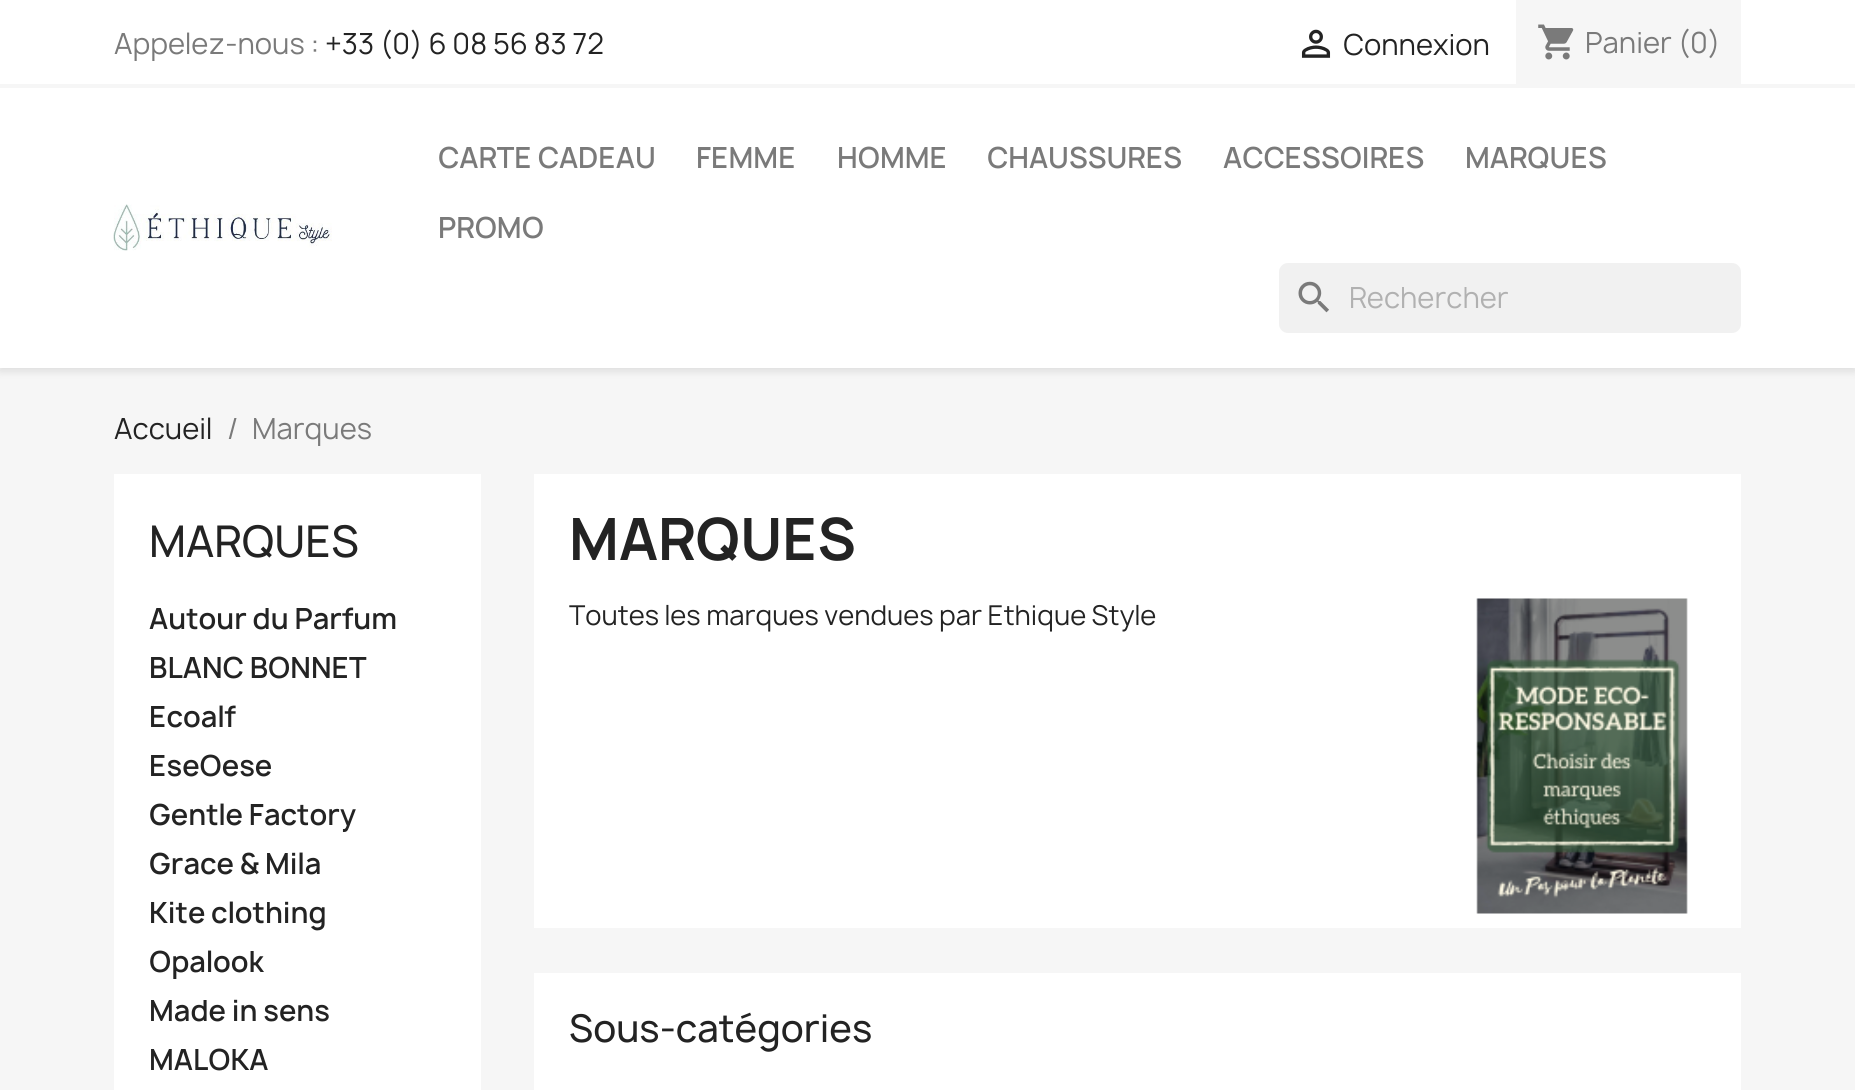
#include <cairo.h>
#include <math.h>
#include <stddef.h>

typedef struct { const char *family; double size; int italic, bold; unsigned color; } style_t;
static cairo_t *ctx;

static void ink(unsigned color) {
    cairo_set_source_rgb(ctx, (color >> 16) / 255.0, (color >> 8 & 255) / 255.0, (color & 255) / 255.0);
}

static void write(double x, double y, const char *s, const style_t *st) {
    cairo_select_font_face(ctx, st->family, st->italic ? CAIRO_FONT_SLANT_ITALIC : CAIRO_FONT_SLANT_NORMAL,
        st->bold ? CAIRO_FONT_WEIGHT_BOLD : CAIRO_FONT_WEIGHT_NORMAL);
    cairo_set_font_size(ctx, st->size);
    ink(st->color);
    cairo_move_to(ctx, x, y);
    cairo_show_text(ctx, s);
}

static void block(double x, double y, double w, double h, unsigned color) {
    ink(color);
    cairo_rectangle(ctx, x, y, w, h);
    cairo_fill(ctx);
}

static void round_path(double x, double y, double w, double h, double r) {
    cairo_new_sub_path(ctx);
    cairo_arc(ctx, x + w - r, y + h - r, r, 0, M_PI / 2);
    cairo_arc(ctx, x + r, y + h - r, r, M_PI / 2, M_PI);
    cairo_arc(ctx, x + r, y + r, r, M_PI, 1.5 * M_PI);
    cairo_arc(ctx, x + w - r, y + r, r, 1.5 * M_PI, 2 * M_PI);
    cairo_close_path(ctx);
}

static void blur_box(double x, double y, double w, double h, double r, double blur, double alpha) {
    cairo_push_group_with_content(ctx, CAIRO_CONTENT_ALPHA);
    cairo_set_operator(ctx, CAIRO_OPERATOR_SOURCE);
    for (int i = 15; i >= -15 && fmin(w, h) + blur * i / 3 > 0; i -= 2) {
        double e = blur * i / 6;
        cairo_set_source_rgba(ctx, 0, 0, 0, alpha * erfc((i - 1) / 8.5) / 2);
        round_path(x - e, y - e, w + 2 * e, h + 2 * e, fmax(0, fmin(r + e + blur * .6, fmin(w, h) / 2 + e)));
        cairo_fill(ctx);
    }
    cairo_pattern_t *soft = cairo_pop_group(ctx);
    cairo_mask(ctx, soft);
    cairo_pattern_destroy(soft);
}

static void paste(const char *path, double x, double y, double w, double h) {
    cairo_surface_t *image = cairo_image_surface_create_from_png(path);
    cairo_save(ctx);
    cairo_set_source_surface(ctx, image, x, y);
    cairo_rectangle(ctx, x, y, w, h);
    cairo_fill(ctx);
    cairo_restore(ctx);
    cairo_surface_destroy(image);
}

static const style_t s1 = {"Manrope", 28, 0, 0, 0x7a7a7a};
static const style_t s2 = {"Manrope", 28, 0, 0, 0x232323};
static const style_t s3 = {"Manrope SemiBold", 28, 0, 0, 0x7a7a7a};
static const style_t s4 = {"Manrope", 28, 0, 0, 0xb1b1b1};
static const style_t s5 = {"Manrope Medium", 42, 0, 0, 0x232323};
static const style_t s6 = {"Manrope SemiBold", 28, 0, 0, 0x232323};
static const style_t s7 = {"Manrope", 56, 0, 1, 0x232323};
static const style_t s8 = {"Manrope", 26.25, 0, 0, 0x232323};
static const style_t s9 = {"Manrope Medium", 36.75, 0, 0, 0x232323};

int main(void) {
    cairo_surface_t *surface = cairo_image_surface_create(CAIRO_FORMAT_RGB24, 1855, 1090);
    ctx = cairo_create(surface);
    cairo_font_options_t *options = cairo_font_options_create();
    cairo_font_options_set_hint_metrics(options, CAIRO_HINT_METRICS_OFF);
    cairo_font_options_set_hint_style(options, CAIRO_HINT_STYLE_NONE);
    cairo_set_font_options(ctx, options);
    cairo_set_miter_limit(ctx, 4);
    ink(0xf6f6f6);
    cairo_paint(ctx);
    ink(0x000000);
    blur_box(0, 4, 1855, 367, 0, 4.5, 0.11);
    block(0, 0, 1855, 368, 0xffffff);
    block(0, 84, 1855, 4, 0xf6f6f6);
    write(114, 54, "Appelez-nous :", &s1);
    write(325, 54, "+33 (0) 6 08 56 83 72", &s2);
    paste("pic1.png", 1301, 29, 30, 29);
    write(1343, 55, "Connexion", &s2);
    block(1516, 0, 225, 84, 0xf6f6f6);
    paste("pic2.png", 1538, 24, 36, 36);
    write(1585, 53, "Panier (0)", &s1);
    paste("pic3.png", 113, 204, 219, 47);
    write(438, 168, "CARTE CADEAU", &s3);
    write(696, 168, "FEMME", &s3);
    write(837, 168, "HOMME", &s3);
    write(987, 168, "CHAUSSURES", &s3);
    write(1223, 168, "ACCESSOIRES", &s3);
    write(1465, 168, "MARQUES", &s3);
    write(438, 238, "PROMO", &s3);
    ink(0xf1f1f1);
    round_path(1279, 263, 462, 70, 9);
    cairo_fill(ctx);
    paste("pic4.png", 1298, 281, 31, 32);
    write(1349, 308, "Rechercher", &s4);
    write(114, 439, "Accueil", &s2);
    write(227, 439, "/", &s1);
    write(252, 439, "Marques", &s1);
    block(114, 474, 367, 616, 0xffffff);
    write(149, 557, "MARQUES", &s5);
    write(149, 629, "Autour du Parfum", &s6);
    write(149, 678, "BLANC BONNET", &s6);
    write(149, 727, "Ecoalf", &s6);
    write(149, 776, "EseOese", &s6);
    write(149, 825, "Gentle Factory", &s6);
    write(149, 874, "Grace & Mila", &s6);
    write(149, 923, "Kite clothing", &s6);
    write(149, 972, "Opalook", &s6);
    write(149, 1021, "Made in sens", &s6);
    write(149, 1070, "MALOKA", &s6);
    block(534, 474, 1207, 454, 0xffffff);
    write(569, 560, "MARQUES", &s7);
    write(569, 625, "Toutes les marques vendues par Ethique Style", &s8);
    paste("pic5.png", 1476, 598, 212, 316);
    block(534, 973, 1207, 117, 0xffffff);
    write(569, 1042, "Sous-catégories", &s9);
    cairo_surface_write_to_png(surface, "screenshot.png");
    cairo_font_options_destroy(options);
    cairo_destroy(ctx);
    cairo_surface_destroy(surface);
    return 0;
}
